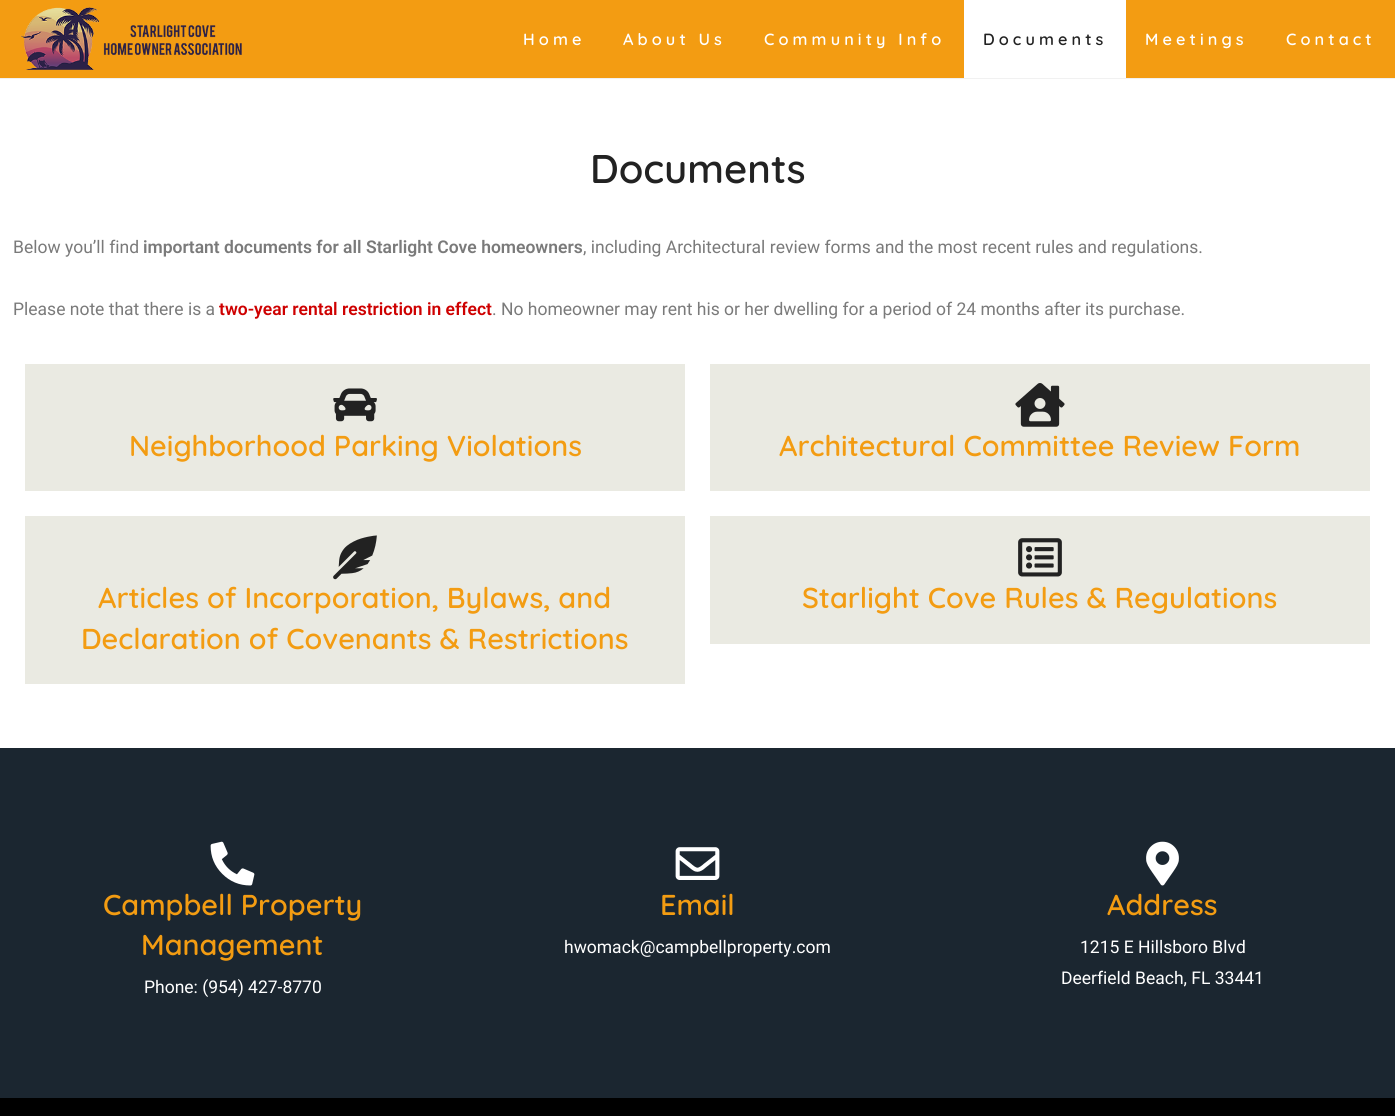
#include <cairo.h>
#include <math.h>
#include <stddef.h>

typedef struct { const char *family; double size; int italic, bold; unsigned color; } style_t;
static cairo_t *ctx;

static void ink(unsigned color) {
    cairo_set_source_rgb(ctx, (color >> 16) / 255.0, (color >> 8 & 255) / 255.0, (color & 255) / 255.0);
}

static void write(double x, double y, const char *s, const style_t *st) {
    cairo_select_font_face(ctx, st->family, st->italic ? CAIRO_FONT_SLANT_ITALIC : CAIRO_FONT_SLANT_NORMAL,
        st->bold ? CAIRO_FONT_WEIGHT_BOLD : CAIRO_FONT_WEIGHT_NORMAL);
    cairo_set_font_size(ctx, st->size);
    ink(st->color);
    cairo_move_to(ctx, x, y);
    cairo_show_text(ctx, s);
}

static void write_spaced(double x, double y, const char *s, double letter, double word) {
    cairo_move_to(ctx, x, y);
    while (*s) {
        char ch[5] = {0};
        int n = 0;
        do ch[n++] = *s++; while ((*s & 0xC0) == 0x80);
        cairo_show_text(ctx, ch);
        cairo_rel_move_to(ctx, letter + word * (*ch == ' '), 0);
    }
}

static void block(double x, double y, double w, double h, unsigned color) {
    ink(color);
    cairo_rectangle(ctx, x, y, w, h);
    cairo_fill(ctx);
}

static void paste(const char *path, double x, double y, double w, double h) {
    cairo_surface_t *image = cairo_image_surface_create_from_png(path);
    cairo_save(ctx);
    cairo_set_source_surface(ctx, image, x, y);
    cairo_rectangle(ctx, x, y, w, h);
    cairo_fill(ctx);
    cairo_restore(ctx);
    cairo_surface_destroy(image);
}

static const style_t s1 = {"Quicksand SemiBold", 40, 0, 0, 0x222222};
static const style_t s2 = {"Roboto", 17.5, 0, 0, 0x7a7a7a};
static const style_t s3 = {"Roboto SemiBold", 17.5, 0, 0, 0x7a7a7a};
static const style_t s4 = {"Roboto SemiBold", 17.5, 0, 0, 0xce0000};
static const style_t s5 = {"Quicksand SemiBold", 28.75, 0, 0, 0xf39c12};
static const style_t s6 = {"Roboto", 17.5, 0, 0, 0xffffff};

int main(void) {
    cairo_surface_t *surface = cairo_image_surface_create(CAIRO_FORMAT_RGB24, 1395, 1116);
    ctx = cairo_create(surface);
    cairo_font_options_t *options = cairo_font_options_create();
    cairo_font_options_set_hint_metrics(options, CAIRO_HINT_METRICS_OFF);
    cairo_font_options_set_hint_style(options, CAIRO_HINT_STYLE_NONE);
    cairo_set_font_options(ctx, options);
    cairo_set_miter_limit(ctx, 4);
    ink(0xffffff);
    cairo_paint(ctx);
    block(0, 78, 1395, 1, 0xf1f1f1);
    block(0, 0, 1395, 78, 0xf39c12);
    paste("pic1.png", 20, 7, 222, 63);
    cairo_select_font_face(ctx, "Quicksand SemiBold", CAIRO_FONT_SLANT_NORMAL, CAIRO_FONT_WEIGHT_NORMAL);
    cairo_set_font_size(ctx, 16.25);
    ink(0xffffff);
    write_spaced(523, 45, "Home", 4.1, 0);
    write_spaced(623, 45, "About Us", 4.1, 0);
    write_spaced(764, 45, "Community Info", 4.1, 0);
    block(964, 0, 162, 78, 0xffffff);
    ink(0x222222);
    write_spaced(983, 45, "Documents", 4.1, 0);
    ink(0xffffff);
    write_spaced(1145, 45, "Meetings", 4.1, 0);
    write_spaced(1286, 45, "Contact", 4.1, 0);
    write(590, 183, "Documents", &s1);
    write(13, 253, "Below you’ll find", &s2);
    write(143, 253, "important documents for all Starlight Cove homeowners", &s3);
    write(583, 253, ", including Architectural review forms and the most recent rules and regulations.", &s2);
    write(13, 315, "Please note that there is a", &s2);
    write(219, 315, "two-year rental restriction in effect", &s4);
    write(492, 315, ". No homeowner may rent his or her dwelling for a period of 24 months after its purchase.", &s2);
    block(25, 364, 660, 127, 0xeaeae2);
    paste("pic2.png", 333, 388, 44, 34);
    write(129, 456, "Neighborhood Parking Violations", &s5);
    block(710, 364, 660, 127, 0xeaeae2);
    paste("pic3.png", 1015, 383, 50, 44);
    write(779, 456, "Architectural Committee Review Form", &s5);
    block(25, 516, 660, 168, 0xeaeae2);
    paste("pic4.png", 333, 535, 44, 45);
    write(98, 608, "Articles of Incorporation, Bylaws, and", &s5);
    write(81, 649, "Declaration of Covenants & Restrictions", &s5);
    block(710, 516, 660, 128, 0xeaeae2);
    paste("pic5.png", 1018, 538, 44, 39);
    write(802, 608, "Starlight Cove Rules & Regulations", &s5);
    block(0, 748, 1395, 350, 0x1b2630);
    paste("pic6.png", 210, 841, 45, 45);
    write(103, 915, "Campbell Property", &s5);
    write(141, 955, "Management", &s5);
    write(144, 993, "Phone: (954) 427-8770", &s6);
    paste("pic7.png", 675, 847, 45, 33);
    write(660, 915, "Email", &s5);
    write(564, 953, "hwomack@campbellproperty.com", &s6);
    paste("pic8.png", 1146, 841, 33, 45);
    write(1107, 915, "Address", &s5);
    write(1080, 953, "1215 E Hillsboro Blvd", &s6);
    write(1061, 984, "Deerfield Beach, FL 33441", &s6);
    block(0, 1098, 1395, 18, 0x000000);
    cairo_surface_write_to_png(surface, "screenshot.png");
    cairo_font_options_destroy(options);
    cairo_destroy(ctx);
    cairo_surface_destroy(surface);
    return 0;
}
